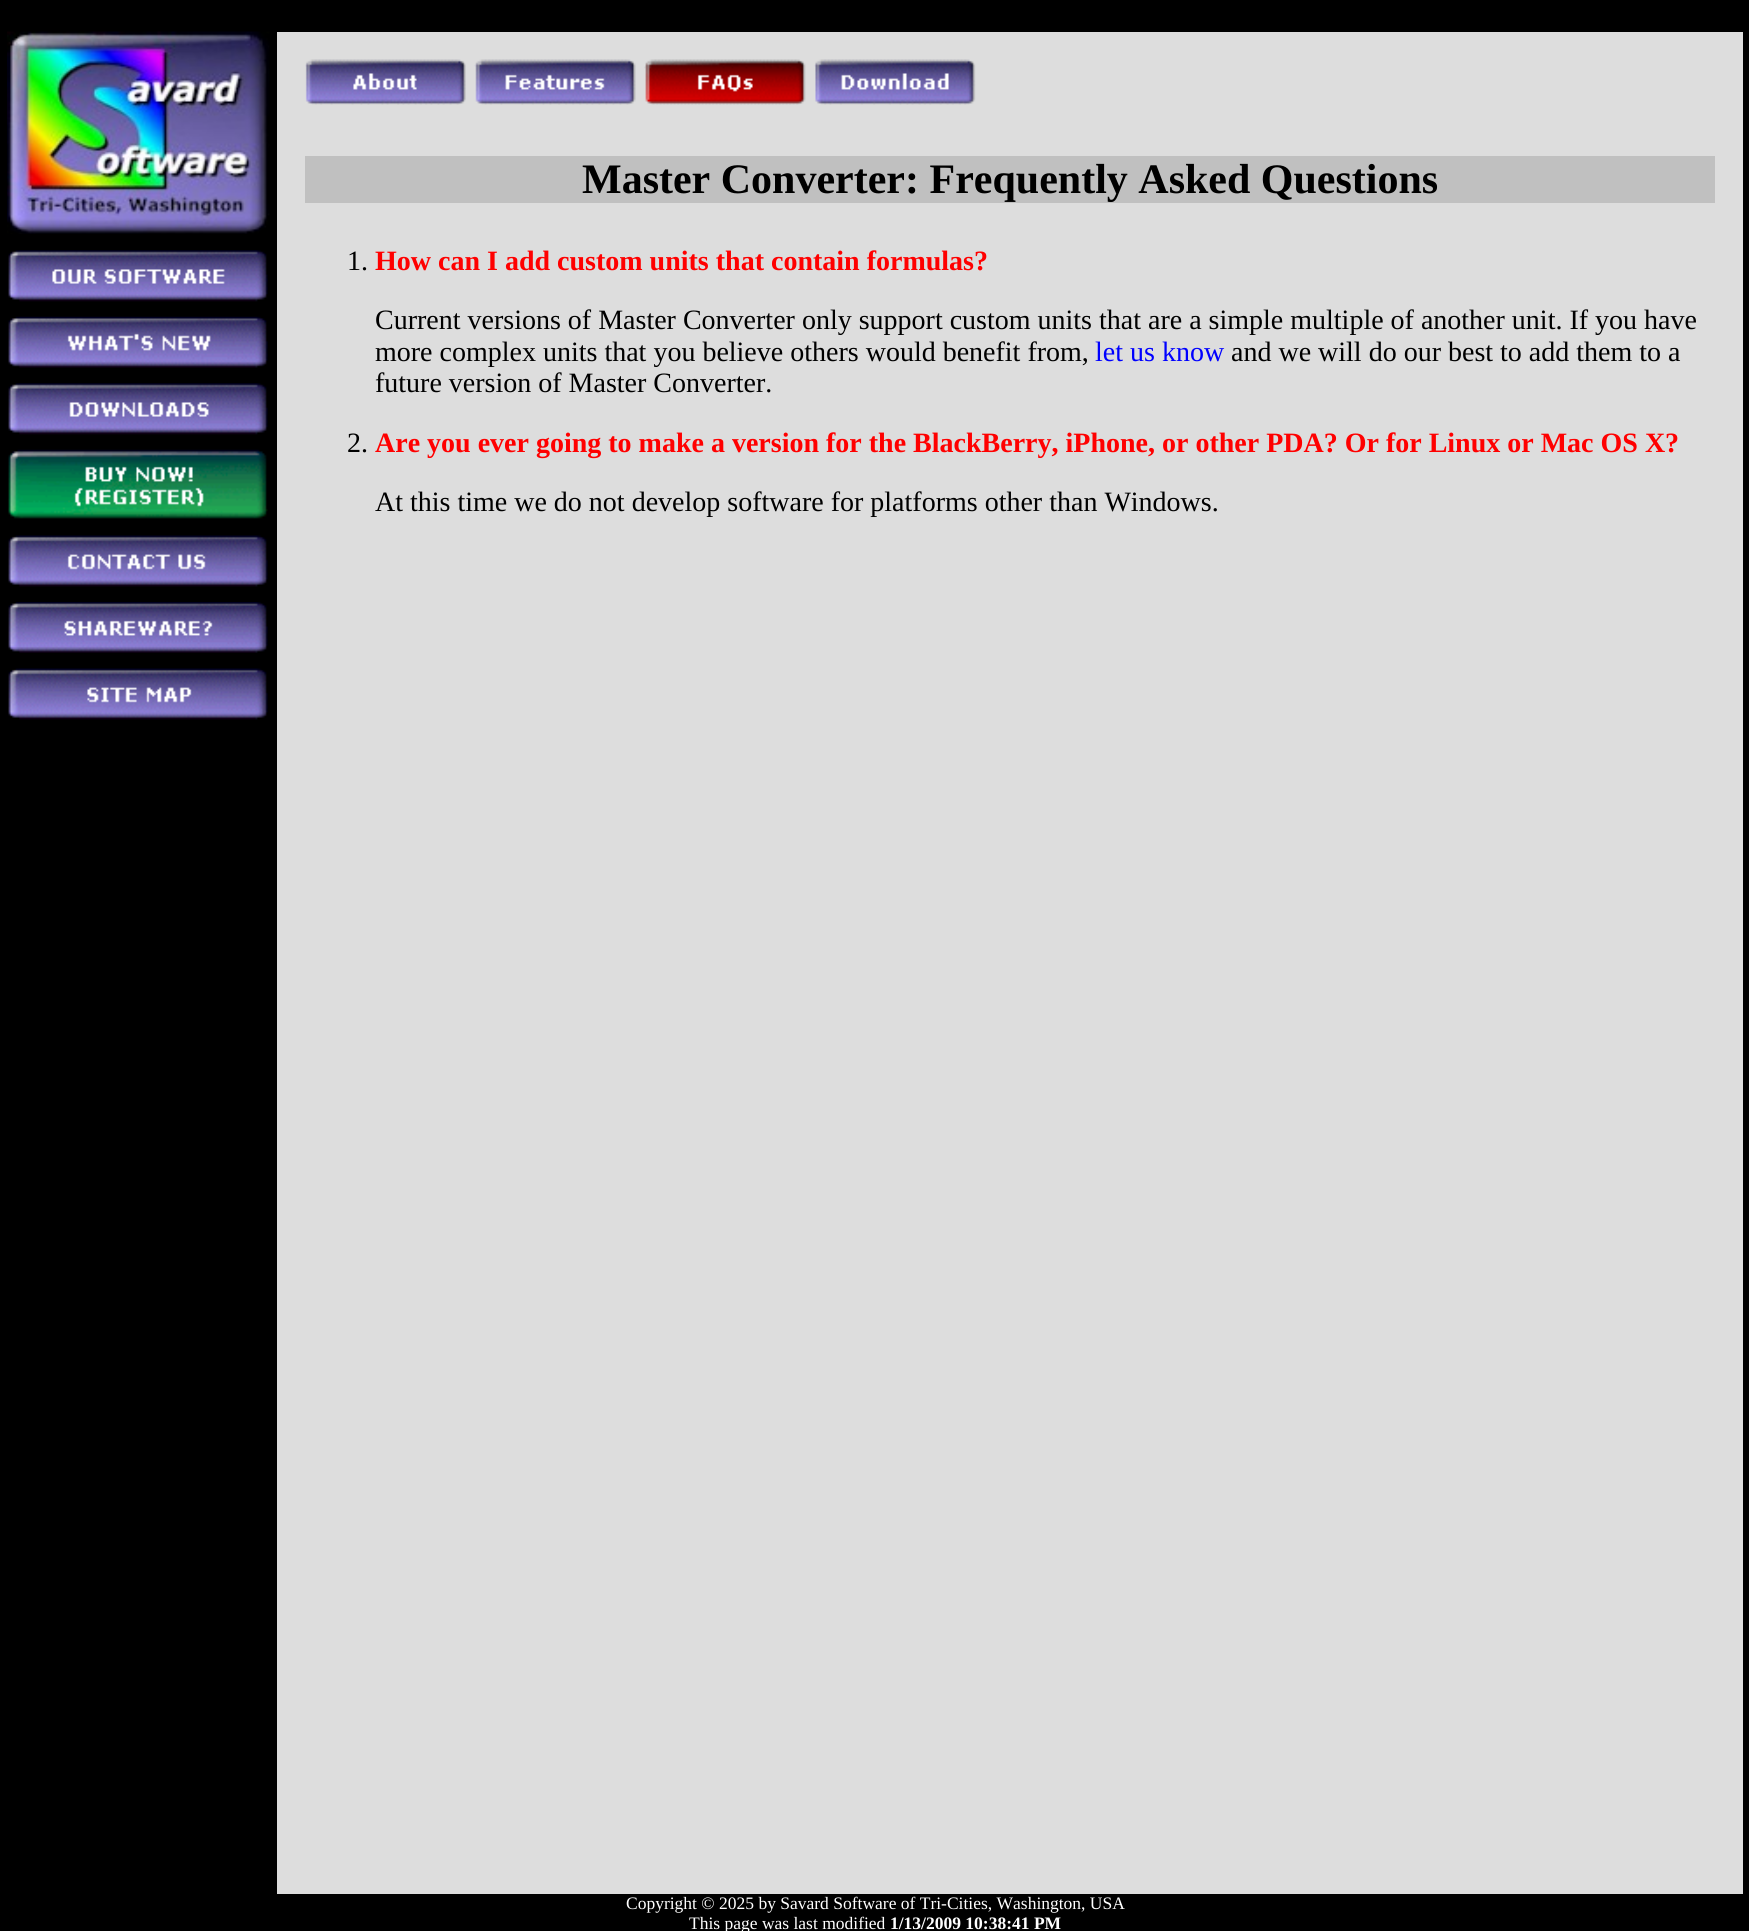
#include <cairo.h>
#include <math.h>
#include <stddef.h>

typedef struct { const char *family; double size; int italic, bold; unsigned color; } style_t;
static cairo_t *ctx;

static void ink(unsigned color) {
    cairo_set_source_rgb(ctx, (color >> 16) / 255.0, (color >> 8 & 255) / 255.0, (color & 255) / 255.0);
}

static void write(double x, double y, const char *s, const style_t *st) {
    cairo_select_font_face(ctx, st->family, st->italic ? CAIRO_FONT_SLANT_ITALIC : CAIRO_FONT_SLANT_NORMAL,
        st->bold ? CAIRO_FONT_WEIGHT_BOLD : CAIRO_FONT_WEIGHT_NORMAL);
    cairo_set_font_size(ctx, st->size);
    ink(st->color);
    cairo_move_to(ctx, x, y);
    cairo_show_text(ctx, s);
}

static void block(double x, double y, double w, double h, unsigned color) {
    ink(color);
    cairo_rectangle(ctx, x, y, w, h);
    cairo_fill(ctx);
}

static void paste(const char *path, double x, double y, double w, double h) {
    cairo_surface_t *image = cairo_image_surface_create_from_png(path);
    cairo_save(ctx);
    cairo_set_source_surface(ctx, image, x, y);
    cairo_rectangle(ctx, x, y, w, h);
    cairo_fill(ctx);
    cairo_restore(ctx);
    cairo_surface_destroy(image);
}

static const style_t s1 = {"Liberation Serif", 42, 0, 1, 0x000000};
static const style_t s2 = {"Liberation Serif", 28, 0, 0, 0x000000};
static const style_t s3 = {"Liberation Serif", 28, 0, 1, 0xff0000};
static const style_t s4 = {"Liberation Serif", 28, 0, 0, 0x0000ff};
static const style_t s5 = {"Liberation Serif", 17.5, 0, 0, 0xffffff};
static const style_t s6 = {"Liberation Serif", 17.5, 0, 1, 0xffffff};

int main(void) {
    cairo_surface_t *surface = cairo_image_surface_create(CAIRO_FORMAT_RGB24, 1749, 1931);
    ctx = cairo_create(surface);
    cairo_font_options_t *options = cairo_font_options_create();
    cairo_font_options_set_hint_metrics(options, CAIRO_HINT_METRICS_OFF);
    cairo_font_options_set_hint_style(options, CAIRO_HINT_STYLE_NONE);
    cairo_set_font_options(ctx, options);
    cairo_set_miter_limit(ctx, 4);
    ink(0x000000);
    cairo_paint(ctx);
    paste("pic1.png", 7, 31, 263, 203);
    paste("pic2.png", 8, 250, 260, 52);
    paste("pic3.png", 8, 316, 260, 52);
    paste("pic4.png", 8, 383, 260, 52);
    paste("pic5.png", 8, 449, 260, 70);
    paste("pic6.png", 8, 535, 260, 52);
    paste("pic7.png", 8, 602, 260, 51);
    paste("pic8.png", 8, 668, 260, 52);
    block(277, 32, 1466, 1862, 0xdddddd);
    paste("pic9.png", 305, 59, 161, 46);
    paste("pic10.png", 474, 59, 162, 46);
    paste("pic11.png", 644, 59, 162, 46);
    paste("pic12.png", 814, 59, 162, 46);
    block(305, 156, 1410, 47, 0xc0c0c0);
    write(582, 193, "Master Converter: Frequently Asked Questions", &s1);
    write(347, 270, "1.", &s2);
    write(375, 270, "How can I add custom units that contain formulas?", &s3);
    write(375, 329, "Current versions of Master Converter only support custom units that are a simple multiple of another unit. If you have", &s2);
    write(375, 361, "more complex units that you believe others would benefit from,", &s2);
    write(1095, 361, "let us know", &s4);
    write(1231, 361, "and we will do our best to add them to a", &s2);
    write(375, 392, "future version of Master Converter.", &s2);
    write(347, 452, "2.", &s2);
    write(375, 452, "Are you ever going to make a version for the BlackBerry, iPhone, or other PDA? Or for Linux or Mac OS X?", &s3);
    write(375, 511, "At this time we do not develop software for platforms other than Windows.", &s2);
    write(626, 1909, "Copyright © 2025 by Savard Software of Tri-Cities, Washington, USA", &s5);
    write(689, 1929, "This page was last modified", &s5);
    write(890, 1929, "1/13/2009 10:38:41 PM", &s6);
    cairo_surface_write_to_png(surface, "screenshot.png");
    cairo_font_options_destroy(options);
    cairo_destroy(ctx);
    cairo_surface_destroy(surface);
    return 0;
}
